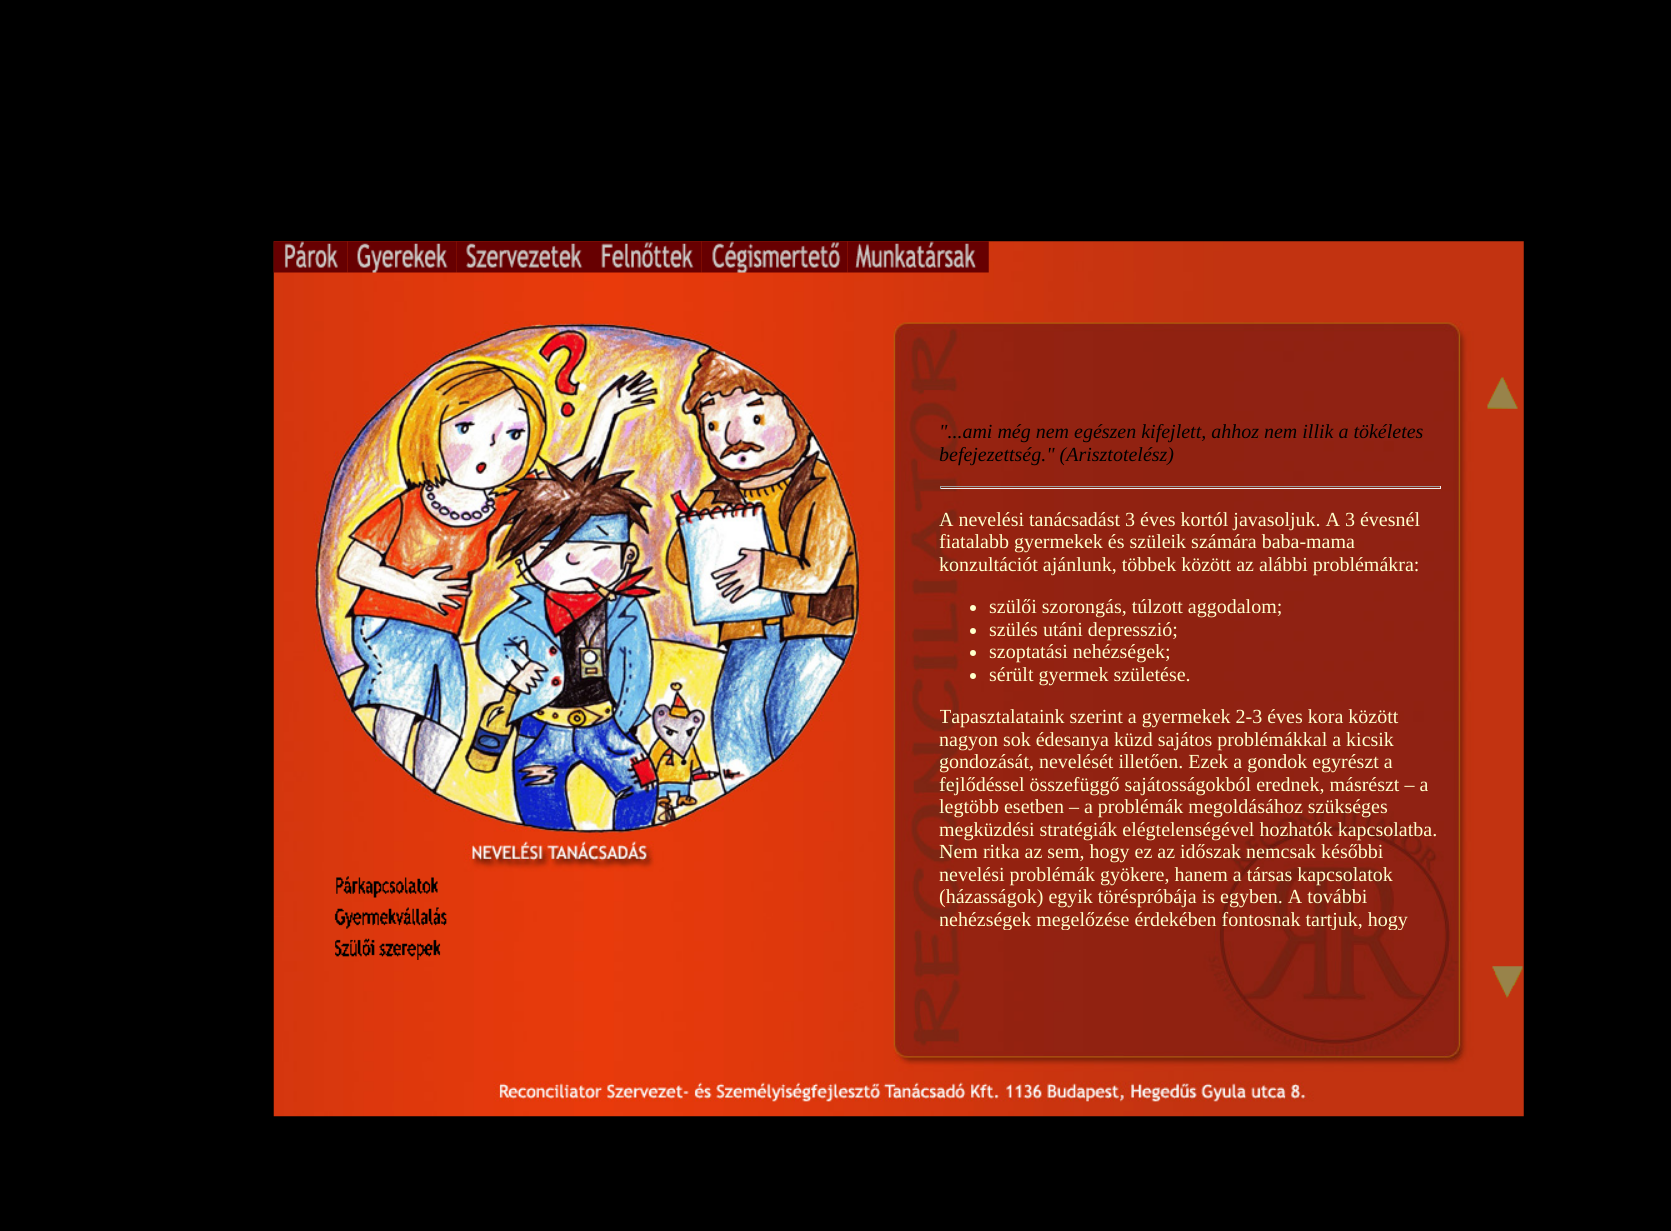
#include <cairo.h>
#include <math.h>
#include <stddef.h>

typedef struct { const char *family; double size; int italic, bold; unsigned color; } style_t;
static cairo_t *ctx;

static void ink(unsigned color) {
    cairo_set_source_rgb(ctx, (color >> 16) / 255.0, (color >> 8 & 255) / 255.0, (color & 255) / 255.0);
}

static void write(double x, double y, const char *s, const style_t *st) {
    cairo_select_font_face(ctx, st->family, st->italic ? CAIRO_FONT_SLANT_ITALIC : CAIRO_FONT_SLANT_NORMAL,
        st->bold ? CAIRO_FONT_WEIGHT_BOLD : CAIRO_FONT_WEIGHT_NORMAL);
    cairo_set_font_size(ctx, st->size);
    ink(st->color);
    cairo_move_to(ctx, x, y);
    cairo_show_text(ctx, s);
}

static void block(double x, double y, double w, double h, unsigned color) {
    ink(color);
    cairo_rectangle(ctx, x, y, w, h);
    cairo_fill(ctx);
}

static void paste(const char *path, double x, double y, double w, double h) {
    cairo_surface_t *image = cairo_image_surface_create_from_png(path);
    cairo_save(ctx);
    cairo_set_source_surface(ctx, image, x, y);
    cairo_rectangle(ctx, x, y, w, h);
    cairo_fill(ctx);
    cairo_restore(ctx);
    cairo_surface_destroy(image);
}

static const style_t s1 = {"Liberation Serif", 20, 1, 0, 0x000000};
static const style_t s2 = {"Liberation Serif", 20, 0, 0, 0xffffcc};

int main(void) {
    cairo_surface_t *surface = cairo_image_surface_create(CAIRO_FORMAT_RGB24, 1671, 1231);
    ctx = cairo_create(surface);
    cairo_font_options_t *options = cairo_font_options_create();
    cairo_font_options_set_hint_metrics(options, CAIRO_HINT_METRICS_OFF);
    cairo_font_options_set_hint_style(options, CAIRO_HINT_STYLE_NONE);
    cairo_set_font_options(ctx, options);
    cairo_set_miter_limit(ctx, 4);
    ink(0x000000);
    cairo_paint(ctx);
    paste("pic1.png", 273, 241, 1251, 876);
    paste("pic2.png", 273, 241, 75, 32);
    paste("pic3.png", 347, 241, 110, 32);
    paste("pic4.png", 456, 241, 134, 32);
    paste("pic5.png", 590, 241, 112, 32);
    paste("pic6.png", 701, 241, 147, 32);
    paste("pic7.png", 847, 241, 142, 32);
    paste("pic8.png", 336, 876, 102, 22);
    paste("pic9.png", 1487, 377, 31, 32);
    write(939, 438, "\"...ami még nem egészen kifejlett, ahhoz nem illik a tökéletes", &s1);
    write(939, 461, "befejezettség.\" (Arisztotelész)", &s1);
    block(940, 486, 501, 1, 0x9f9f9f);
    block(1440, 486, 1, 3, 0xeeeeee);
    block(940, 488, 501, 1, 0xeeeeee);
    block(940, 486, 1, 3, 0x9f9f9f);
    write(939, 526, "A nevelési tanácsadást 3 éves kortól javasoljuk. A 3 évesnél", &s2);
    write(939, 548, "fiatalabb gyermekek és szüleik számára baba-mama", &s2);
    write(939, 571, "konzultációt ajánlunk, többek között az alábbi problémákra:", &s2);
    cairo_new_path(ctx);
    cairo_arc(ctx, 973, 608, 3, 0, 2 * M_PI);
    cairo_fill(ctx);
    write(989, 613, "szülői szorongás, túlzott aggodalom;", &s2);
    cairo_new_path(ctx);
    cairo_arc(ctx, 973, 631, 3, 0, 2 * M_PI);
    cairo_fill(ctx);
    write(989, 636, "szülés utáni depresszió;", &s2);
    cairo_new_path(ctx);
    cairo_arc(ctx, 973, 653, 3, 0, 2 * M_PI);
    cairo_fill(ctx);
    write(989, 658, "szoptatási nehézségek;", &s2);
    cairo_new_path(ctx);
    cairo_arc(ctx, 973, 676, 3, 0, 2 * M_PI);
    cairo_fill(ctx);
    write(989, 681, "sérült gyermek születése.", &s2);
    cairo_save(ctx);
    cairo_rectangle(ctx, 940, 401, 556, 529);
    cairo_clip(ctx);
    write(939, 723, "Tapasztalataink szerint a gyermekek 2-3 éves kora között", &s2);
    cairo_restore(ctx);
    write(939, 746, "nagyon sok édesanya küzd sajátos problémákkal a kicsik", &s2);
    write(939, 768, "gondozását, nevelését illetően. Ezek a gondok egyrészt a", &s2);
    write(939, 791, "fejlődéssel összefüggő sajátosságokból erednek, másrészt – a", &s2);
    write(939, 813, "legtöbb esetben – a problémák megoldásához szükséges", &s2);
    write(939, 836, "megküzdési stratégiák elégtelenségével hozhatók kapcsolatba.", &s2);
    write(939, 858, "Nem ritka az sem, hogy ez az időszak nemcsak későbbi", &s2);
    write(939, 881, "nevelési problémák gyökere, hanem a társas kapcsolatok", &s2);
    write(939, 903, "(házasságok) egyik töréspróbája is egyben. A további", &s2);
    cairo_save(ctx);
    cairo_rectangle(ctx, 940, 401, 556, 529);
    cairo_clip(ctx);
    write(939, 926, "nehézségek megelőzése érdekében fontosnak tartjuk, hogy", &s2);
    cairo_restore(ctx);
    paste("pic10.png", 1492, 966, 31, 32);
    paste("pic11.png", 334, 907, 113, 22);
    paste("pic12.png", 335, 938, 106, 22);
    cairo_surface_write_to_png(surface, "screenshot.png");
    cairo_font_options_destroy(options);
    cairo_destroy(ctx);
    cairo_surface_destroy(surface);
    return 0;
}
